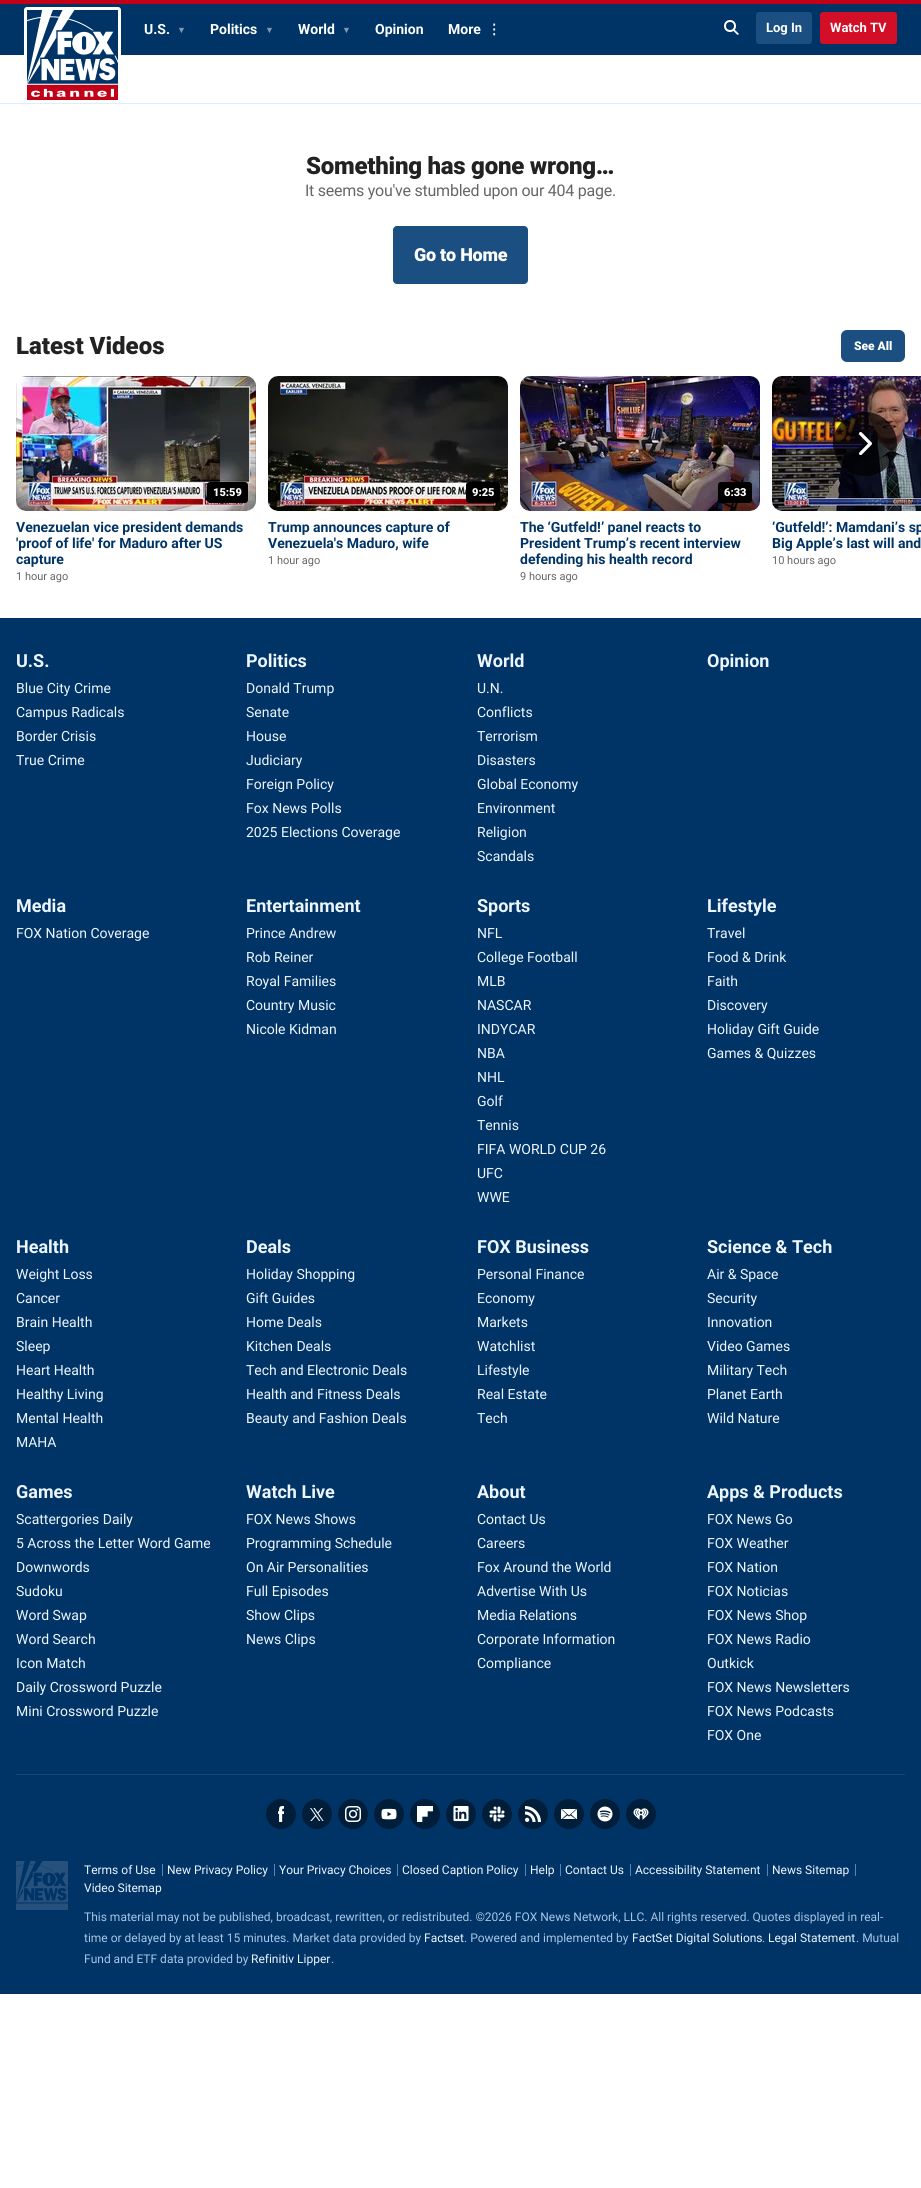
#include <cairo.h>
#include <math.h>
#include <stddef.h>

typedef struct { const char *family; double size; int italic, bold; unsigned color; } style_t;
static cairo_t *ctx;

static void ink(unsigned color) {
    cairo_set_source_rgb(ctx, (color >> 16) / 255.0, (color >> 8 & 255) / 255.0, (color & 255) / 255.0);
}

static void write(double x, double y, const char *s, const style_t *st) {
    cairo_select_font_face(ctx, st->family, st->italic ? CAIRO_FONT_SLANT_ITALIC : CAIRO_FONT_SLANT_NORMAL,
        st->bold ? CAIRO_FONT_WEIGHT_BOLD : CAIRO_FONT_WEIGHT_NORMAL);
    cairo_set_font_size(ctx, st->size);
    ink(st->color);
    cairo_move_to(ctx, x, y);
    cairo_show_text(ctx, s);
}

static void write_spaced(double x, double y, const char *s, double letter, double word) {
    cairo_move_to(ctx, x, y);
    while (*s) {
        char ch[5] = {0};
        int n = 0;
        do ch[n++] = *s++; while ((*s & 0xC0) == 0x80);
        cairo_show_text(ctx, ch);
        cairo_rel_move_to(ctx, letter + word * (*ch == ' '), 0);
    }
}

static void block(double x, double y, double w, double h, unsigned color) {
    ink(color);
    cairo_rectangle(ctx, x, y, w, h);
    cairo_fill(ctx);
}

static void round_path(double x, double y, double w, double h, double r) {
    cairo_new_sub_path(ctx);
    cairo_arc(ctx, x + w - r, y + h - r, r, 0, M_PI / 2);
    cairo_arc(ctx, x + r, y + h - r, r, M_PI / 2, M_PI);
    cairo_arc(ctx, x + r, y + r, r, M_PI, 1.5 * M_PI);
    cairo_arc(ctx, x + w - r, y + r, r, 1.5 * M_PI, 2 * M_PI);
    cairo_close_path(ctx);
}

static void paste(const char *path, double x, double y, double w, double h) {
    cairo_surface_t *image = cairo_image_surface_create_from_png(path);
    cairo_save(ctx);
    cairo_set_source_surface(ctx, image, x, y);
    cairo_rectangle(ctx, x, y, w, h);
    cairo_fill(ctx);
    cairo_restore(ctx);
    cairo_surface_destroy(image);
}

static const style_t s1 = {"Roboto", 14, 0, 1, 0xffffff};
static const style_t s2 = {"Liberation Sans", 9, 0, 1, 0x8099b3};
static const style_t s3 = {"DejaVu Sans", 14, 0, 1, 0xedf6ff};
static const style_t s4 = {"Roboto", 13, 0, 1, 0xffffff};
static const style_t s5 = {"Roboto Black", 24, 0, 0, 0x222222};
static const style_t s6 = {"Roboto Black", 12, 0, 0, 0xffffff};
static const style_t s7 = {"Roboto Black", 11, 0, 0, 0xffffff};
static const style_t s8 = {"Roboto", 14, 0, 1, 0x003366};
static const style_t s9 = {"Roboto", 11, 0, 0, 0x666666};
static const style_t s10 = {"Roboto", 18, 0, 1, 0xedf6ff};
static const style_t s11 = {"Roboto", 14, 0, 0, 0xedf6ff};
static const style_t s12 = {"Roboto", 12, 0, 0, 0xedf6ff};
static const style_t s13 = {"Roboto", 12, 0, 0, 0xa7c6e5};

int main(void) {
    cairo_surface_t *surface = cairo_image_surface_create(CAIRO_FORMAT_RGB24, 921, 2188);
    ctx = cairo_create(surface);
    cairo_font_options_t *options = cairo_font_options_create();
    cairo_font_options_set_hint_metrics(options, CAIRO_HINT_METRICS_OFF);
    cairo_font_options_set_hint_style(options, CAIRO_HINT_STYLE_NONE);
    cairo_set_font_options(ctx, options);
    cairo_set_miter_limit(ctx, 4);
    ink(0xffffff);
    cairo_paint(ctx);
    block(0, 0, 921, 4, 0xc20017);
    block(0, 4, 921, 51, 0x003366);
    paste("pic1.png", 27, 10, 91, 90);
    round_path(25.5, 8.5, 94, 93, 1.5);
    ink(0xffffff);
    cairo_set_line_width(ctx, 3);
    cairo_stroke(ctx);
    write(144, 34, "U.S.", &s1);
    write(177, 33, "▼", &s2);
    write(210, 34, "Politics", &s1);
    write(265, 33, "▼", &s2);
    write(298, 34, "World", &s1);
    write(342, 33, "▼", &s2);
    write(375, 34, "Opinion", &s1);
    write(448, 34, "More", &s1);
    write(487, 34, "⋮", &s3);
    cairo_new_path(ctx);
    cairo_arc(ctx, 730, 26, 5, 0, 2 * M_PI);
    ink(0xffffff);
    cairo_set_line_width(ctx, 2);
    cairo_stroke(ctx);
    cairo_new_path(ctx);
    cairo_move_to(ctx, 734, 29);
    cairo_line_to(ctx, 739, 34);
    cairo_line_to(ctx, 737.5, 35);
    cairo_line_to(ctx, 732.5, 30);
    cairo_close_path(ctx);
    cairo_fill(ctx);
    ink(0x1b4e81);
    round_path(756, 12, 56, 32, 3);
    cairo_fill(ctx);
    write(766, 32, "Log In", &s4);
    ink(0xd20f26);
    round_path(820, 12, 77, 32, 3);
    cairo_fill(ctx);
    write(830, 32, "Watch TV", &s4);
    block(0, 103, 921, 1, 0xddeeff);
    cairo_select_font_face(ctx, "Roboto Black", CAIRO_FONT_SLANT_NORMAL, CAIRO_FONT_WEIGHT_NORMAL);
    cairo_set_font_size(ctx, 24);
    ink(0x222222);
    write_spaced(306, 174, "Something has gone wrong…", -0.25, 0);
    cairo_select_font_face(ctx, "Roboto", CAIRO_FONT_SLANT_NORMAL, CAIRO_FONT_WEIGHT_NORMAL);
    cairo_set_font_size(ctx, 16);
    ink(0x666666);
    write_spaced(305, 196, "It seems you've stumbled upon our 404 page.", -0.25, 0);
    ink(0x1b4e81);
    round_path(393.5, 226.5, 134, 57, 3.5);
    cairo_fill_preserve(ctx);
    cairo_set_line_width(ctx, 1);
    cairo_stroke(ctx);
    cairo_select_font_face(ctx, "Roboto Black", CAIRO_FONT_SLANT_NORMAL, CAIRO_FONT_WEIGHT_NORMAL);
    cairo_set_font_size(ctx, 18);
    ink(0xffffff);
    write_spaced(414, 261, "Go to Home", -0.25, 0);
    write(16, 354, "Latest Videos", &s5);
    ink(0x1b4e81);
    round_path(841, 330, 64, 32, 6);
    cairo_fill(ctx);
    write(854, 350, "See All", &s6);
    paste("pic6.png", 772, 376, 149, 135);
    cairo_set_source_rgba(ctx, 0, 0, 0, 0.7);
    cairo_arc(ctx, 865, 444, 32, 0, 2 * M_PI);
    cairo_fill(ctx);
    paste("pic2.png", 859, 432, 13, 23);
    paste("pic3.png", 16, 376, 240, 135);
    ink(0x000000);
    round_path(207, 482, 41, 21, 3);
    cairo_fill(ctx);
    write(213, 496, "15:59", &s7);
    write(16, 532, "Venezuelan vice president demands", &s8);
    write(16, 548, "'proof of life' for Maduro after US", &s8);
    write(16, 564, "capture", &s8);
    write(16, 580, "1 hour ago", &s9);
    paste("pic4.png", 268, 376, 240, 135);
    ink(0x000000);
    round_path(466, 482, 34, 21, 3);
    cairo_fill(ctx);
    write(472, 496, "9:25", &s7);
    write(268, 532, "Trump announces capture of", &s8);
    write(268, 548, "Venezuela's Maduro, wife", &s8);
    write(268, 564, "1 hour ago", &s9);
    paste("pic5.png", 520, 376, 240, 135);
    ink(0x000000);
    round_path(718, 482, 34, 21, 3);
    cairo_fill(ctx);
    write(724, 496, "6:33", &s7);
    write(520, 532, "The ‘Gutfeld!’ panel reacts to", &s8);
    write(520, 548, "President Trump’s recent interview", &s8);
    write(520, 564, "defending his health record", &s8);
    write(520, 580, "9 hours ago", &s9);
    write(772, 532, "‘Gutfeld!’: Mamdani’s sp", &s8);
    write(772, 548, "Big Apple’s last will and", &s8);
    write(772, 564, "10 hours ago", &s9);
    block(0, 618, 921, 1376, 0x003366);
    write(16, 667, "U.S.", &s10);
    write(16, 693, "Blue City Crime", &s11);
    write(16, 717, "Campus Radicals", &s11);
    write(16, 741, "Border Crisis", &s11);
    write(16, 765, "True Crime", &s11);
    write(246, 667, "Politics", &s10);
    write(246, 693, "Donald Trump", &s11);
    write(246, 717, "Senate", &s11);
    write(246, 741, "House", &s11);
    write(246, 765, "Judiciary", &s11);
    write(246, 789, "Foreign Policy", &s11);
    write(246, 813, "Fox News Polls", &s11);
    write(246, 837, "2025 Elections Coverage", &s11);
    write(477, 667, "World", &s10);
    write(477, 693, "U.N.", &s11);
    write(477, 717, "Conflicts", &s11);
    write(477, 741, "Terrorism", &s11);
    write(477, 765, "Disasters", &s11);
    write(477, 789, "Global Economy", &s11);
    write(477, 813, "Environment", &s11);
    write(477, 837, "Religion", &s11);
    write(477, 861, "Scandals", &s11);
    write(707, 667, "Opinion", &s10);
    write(16, 912, "Media", &s10);
    write(16, 938, "FOX Nation Coverage", &s11);
    write(246, 912, "Entertainment", &s10);
    write(246, 938, "Prince Andrew", &s11);
    write(246, 962, "Rob Reiner", &s11);
    write(246, 986, "Royal Families", &s11);
    write(246, 1010, "Country Music", &s11);
    write(246, 1034, "Nicole Kidman", &s11);
    write(477, 912, "Sports", &s10);
    write(477, 938, "NFL", &s11);
    write(477, 962, "College Football", &s11);
    write(477, 986, "MLB", &s11);
    write(477, 1010, "NASCAR", &s11);
    write(477, 1034, "INDYCAR", &s11);
    write(477, 1058, "NBA", &s11);
    write(477, 1082, "NHL", &s11);
    write(477, 1106, "Golf", &s11);
    write(477, 1130, "Tennis", &s11);
    write(477, 1154, "FIFA WORLD CUP 26", &s11);
    write(477, 1178, "UFC", &s11);
    write(477, 1202, "WWE", &s11);
    write(707, 912, "Lifestyle", &s10);
    write(707, 938, "Travel", &s11);
    write(707, 962, "Food & Drink", &s11);
    write(707, 986, "Faith", &s11);
    write(707, 1010, "Discovery", &s11);
    write(707, 1034, "Holiday Gift Guide", &s11);
    write(707, 1058, "Games & Quizzes", &s11);
    write(16, 1253, "Health", &s10);
    write(16, 1279, "Weight Loss", &s11);
    write(16, 1303, "Cancer", &s11);
    write(16, 1327, "Brain Health", &s11);
    write(16, 1351, "Sleep", &s11);
    write(16, 1375, "Heart Health", &s11);
    write(16, 1399, "Healthy Living", &s11);
    write(16, 1423, "Mental Health", &s11);
    write(16, 1447, "MAHA", &s11);
    write(246, 1253, "Deals", &s10);
    write(246, 1279, "Holiday Shopping", &s11);
    write(246, 1303, "Gift Guides", &s11);
    write(246, 1327, "Home Deals", &s11);
    write(246, 1351, "Kitchen Deals", &s11);
    write(246, 1375, "Tech and Electronic Deals", &s11);
    write(246, 1399, "Health and Fitness Deals", &s11);
    write(246, 1423, "Beauty and Fashion Deals", &s11);
    write(477, 1253, "FOX Business", &s10);
    write(477, 1279, "Personal Finance", &s11);
    write(477, 1303, "Economy", &s11);
    write(477, 1327, "Markets", &s11);
    write(477, 1351, "Watchlist", &s11);
    write(477, 1375, "Lifestyle", &s11);
    write(477, 1399, "Real Estate", &s11);
    write(477, 1423, "Tech", &s11);
    write(707, 1253, "Science & Tech", &s10);
    write(707, 1279, "Air & Space", &s11);
    write(707, 1303, "Security", &s11);
    write(707, 1327, "Innovation", &s11);
    write(707, 1351, "Video Games", &s11);
    write(707, 1375, "Military Tech", &s11);
    write(707, 1399, "Planet Earth", &s11);
    write(707, 1423, "Wild Nature", &s11);
    write(16, 1498, "Games", &s10);
    write(16, 1524, "Scattergories Daily", &s11);
    write(16, 1548, "5 Across the Letter Word Game", &s11);
    write(16, 1572, "Downwords", &s11);
    write(16, 1596, "Sudoku", &s11);
    write(16, 1620, "Word Swap", &s11);
    write(16, 1644, "Word Search", &s11);
    write(16, 1668, "Icon Match", &s11);
    write(16, 1692, "Daily Crossword Puzzle", &s11);
    write(16, 1716, "Mini Crossword Puzzle", &s11);
    write(246, 1498, "Watch Live", &s10);
    write(246, 1524, "FOX News Shows", &s11);
    write(246, 1548, "Programming Schedule", &s11);
    write(246, 1572, "On Air Personalities", &s11);
    write(246, 1596, "Full Episodes", &s11);
    write(246, 1620, "Show Clips", &s11);
    write(246, 1644, "News Clips", &s11);
    write(477, 1498, "About", &s10);
    write(477, 1524, "Contact Us", &s11);
    write(477, 1548, "Careers", &s11);
    write(477, 1572, "Fox Around the World", &s11);
    write(477, 1596, "Advertise With Us", &s11);
    write(477, 1620, "Media Relations", &s11);
    write(477, 1644, "Corporate Information", &s11);
    write(477, 1668, "Compliance", &s11);
    write(707, 1498, "Apps & Products", &s10);
    write(707, 1524, "FOX News Go", &s11);
    write(707, 1548, "FOX Weather", &s11);
    write(707, 1572, "FOX Nation", &s11);
    write(707, 1596, "FOX Noticias", &s11);
    write(707, 1620, "FOX News Shop", &s11);
    write(707, 1644, "FOX News Radio", &s11);
    write(707, 1668, "Outkick", &s11);
    write(707, 1692, "FOX News Newsletters", &s11);
    write(707, 1716, "FOX News Podcasts", &s11);
    write(707, 1740, "FOX One", &s11);
    block(16, 1774, 889, 1, 0x174676);
    ink(0x001d3a);
    cairo_new_path(ctx);
    cairo_arc(ctx, 281, 1814, 15, 0, 2 * M_PI);
    cairo_fill(ctx);
    paste("pic7.png", 278, 1806, 6, 16);
    cairo_arc(ctx, 317, 1814, 15, 0, 2 * M_PI);
    cairo_fill(ctx);
    paste("pic8.png", 310, 1808, 14, 13);
    cairo_arc(ctx, 353, 1814, 15, 0, 2 * M_PI);
    cairo_fill(ctx);
    paste("pic9.png", 345, 1806, 16, 16);
    cairo_arc(ctx, 389, 1814, 15, 0, 2 * M_PI);
    cairo_fill(ctx);
    paste("pic10.png", 381, 1808, 16, 12);
    cairo_arc(ctx, 425, 1814, 15, 0, 2 * M_PI);
    cairo_fill(ctx);
    paste("pic11.png", 417, 1806, 16, 16);
    cairo_arc(ctx, 461, 1814, 15, 0, 2 * M_PI);
    cairo_fill(ctx);
    paste("pic12.png", 453, 1806, 16, 16);
    cairo_arc(ctx, 497, 1814, 15, 0, 2 * M_PI);
    cairo_fill(ctx);
    paste("pic13.png", 489, 1806, 16, 16);
    cairo_arc(ctx, 533, 1814, 15, 0, 2 * M_PI);
    cairo_fill(ctx);
    paste("pic14.png", 525, 1806, 16, 16);
    cairo_arc(ctx, 569, 1814, 15, 0, 2 * M_PI);
    cairo_fill(ctx);
    paste("pic15.png", 561, 1809, 16, 10);
    cairo_arc(ctx, 605, 1814, 15, 0, 2 * M_PI);
    cairo_fill(ctx);
    paste("pic16.png", 597, 1806, 16, 16);
    cairo_arc(ctx, 641, 1814, 15, 0, 2 * M_PI);
    cairo_fill(ctx);
    paste("pic17.png", 633, 1808, 16, 12);
    paste("pic18.png", 16, 1861, 52, 49);
    write(84, 1874, "Terms of Use", &s12);
    block(162, 1864, 1, 12, 0x5787b8);
    write(167, 1874, "New Privacy Policy", &s12);
    block(274, 1864, 1, 12, 0x5787b8);
    write(279, 1874, "Your Privacy Choices", &s12);
    block(397, 1864, 1, 12, 0x5787b8);
    write(402, 1874, "Closed Caption Policy", &s12);
    block(525, 1864, 1, 12, 0x5787b8);
    write(530, 1874, "Help", &s12);
    block(560, 1864, 1, 12, 0x5787b8);
    write(565, 1874, "Contact Us", &s12);
    block(630, 1864, 1, 12, 0x5787b8);
    write(635, 1874, "Accessibility Statement", &s12);
    block(767, 1864, 1, 12, 0x5787b8);
    write(772, 1874, "News Sitemap", &s12);
    block(855, 1864, 1, 12, 0x5787b8);
    write(84, 1892, "Video Sitemap", &s12);
    write(84, 1921, "This material may not be published, broadcast, rewritten, or redistributed. ©2026 FOX News Network, LLC. All rights reserved. Quotes displayed in real-", &s13);
    write(84, 1942, "time or delayed by at least 15 minutes. Market data provided by", &s13);
    write(424, 1942, "Factset", &s12);
    write(464, 1942, ". Powered and implemented by", &s13);
    write(632, 1942, "FactSet Digital Solutions", &s12);
    write(762, 1942, ".", &s13);
    write(768, 1942, "Legal Statement", &s12);
    write(856, 1942, ". Mutual", &s13);
    write(84, 1963, "Fund and ETF data provided by", &s13);
    write(251, 1963, "Refinitiv Lipper", &s12);
    write(331, 1963, ".", &s13);
    cairo_surface_write_to_png(surface, "screenshot.png");
    cairo_font_options_destroy(options);
    cairo_destroy(ctx);
    cairo_surface_destroy(surface);
    return 0;
}
